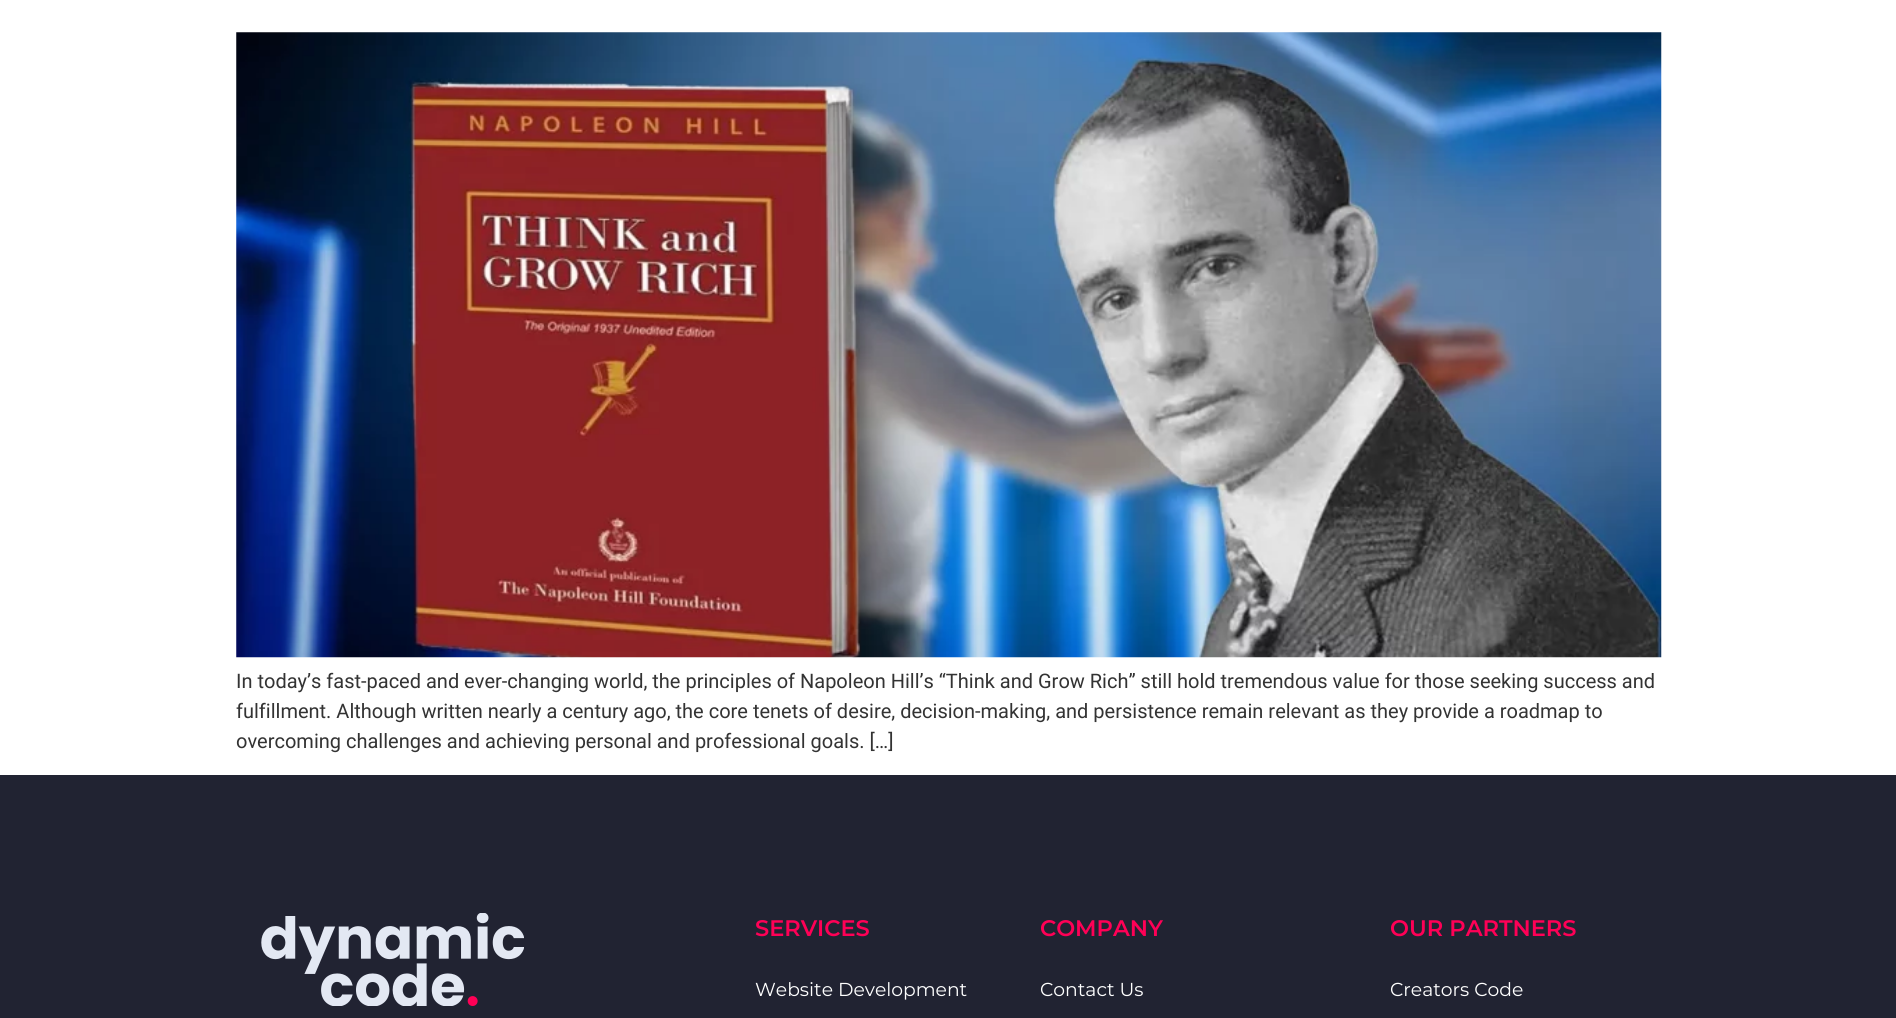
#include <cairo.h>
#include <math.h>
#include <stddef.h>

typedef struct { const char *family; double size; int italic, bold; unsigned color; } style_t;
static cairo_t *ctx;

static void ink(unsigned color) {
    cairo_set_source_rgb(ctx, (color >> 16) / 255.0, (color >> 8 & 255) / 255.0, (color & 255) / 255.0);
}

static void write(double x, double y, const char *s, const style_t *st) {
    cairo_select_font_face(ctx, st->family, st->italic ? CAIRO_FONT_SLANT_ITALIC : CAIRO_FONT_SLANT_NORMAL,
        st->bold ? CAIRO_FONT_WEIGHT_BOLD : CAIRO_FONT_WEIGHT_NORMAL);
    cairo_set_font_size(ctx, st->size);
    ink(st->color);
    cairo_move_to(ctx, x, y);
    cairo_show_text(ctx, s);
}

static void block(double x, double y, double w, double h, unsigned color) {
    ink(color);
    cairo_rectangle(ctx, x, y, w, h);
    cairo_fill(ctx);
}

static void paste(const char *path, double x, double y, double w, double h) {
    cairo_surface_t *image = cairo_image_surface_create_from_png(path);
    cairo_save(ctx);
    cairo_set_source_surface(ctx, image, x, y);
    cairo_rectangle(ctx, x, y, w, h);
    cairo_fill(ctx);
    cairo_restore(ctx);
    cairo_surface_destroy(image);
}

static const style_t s1 = {"Roboto", 20, 0, 0, 0x333333};
static const style_t s2 = {"Montserrat SemiBold", 22.5, 0, 0, 0xff0056};
static const style_t s3 = {"Montserrat", 18.75, 0, 0, 0xffffff};

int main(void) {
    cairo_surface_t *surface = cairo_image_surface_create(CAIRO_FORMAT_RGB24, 1896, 1018);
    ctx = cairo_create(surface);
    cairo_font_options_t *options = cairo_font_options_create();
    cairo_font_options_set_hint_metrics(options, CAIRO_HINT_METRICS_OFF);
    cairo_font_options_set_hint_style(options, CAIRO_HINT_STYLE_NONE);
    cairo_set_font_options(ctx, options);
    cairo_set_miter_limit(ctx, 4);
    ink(0xffffff);
    cairo_paint(ctx);
    paste("pic1.png", 236, 32, 1426, 626);
    write(236, 688, "In today’s fast-paced and ever-changing world, the principles of Napoleon Hill’s “Think and Grow Rich” still hold tremendous value for those seeking success and", &s1);
    write(236, 718, "fulfillment. Although written nearly a century ago, the core tenets of desire, decision-making, and persistence remain relevant as they provide a roadmap to", &s1);
    write(236, 748, "overcoming challenges and achieving personal and professional goals. […]", &s1);
    block(0, 775, 1896, 243, 0x212332);
    paste("pic2.png", 261, 913, 263, 93);
    write(755, 936, "SERVICES", &s2);
    write(755, 996, "Website Development", &s3);
    write(1040, 936, "COMPANY", &s2);
    write(1040, 996, "Contact Us", &s3);
    write(1390, 936, "OUR PARTNERS", &s2);
    write(1390, 996, "Creators Code", &s3);
    cairo_surface_write_to_png(surface, "screenshot.png");
    cairo_font_options_destroy(options);
    cairo_destroy(ctx);
    cairo_surface_destroy(surface);
    return 0;
}
